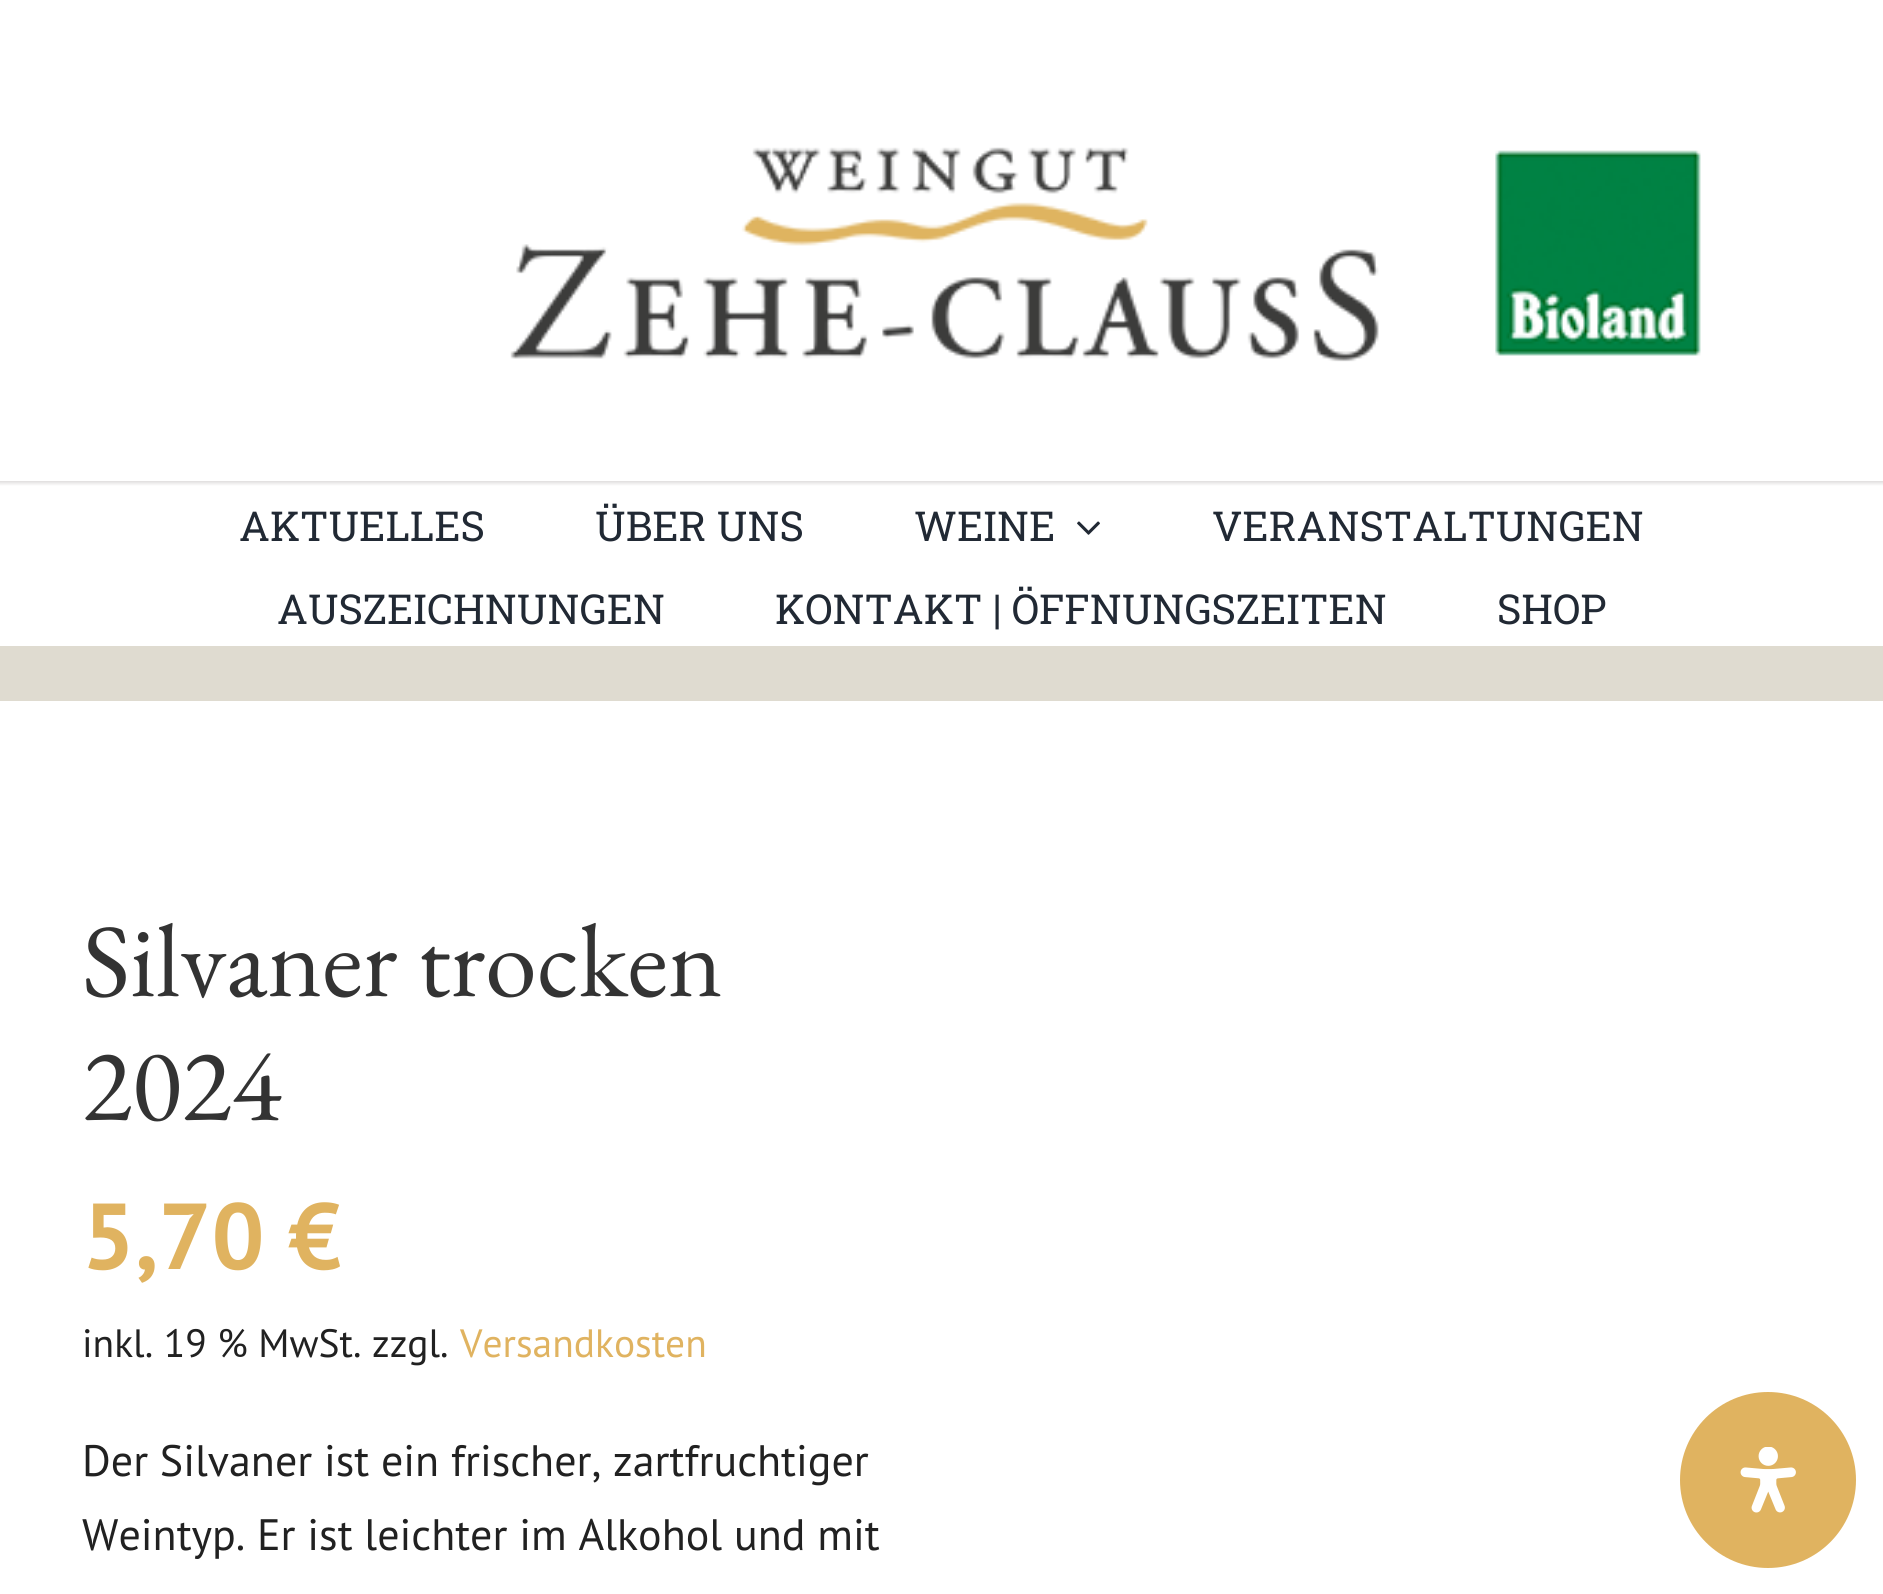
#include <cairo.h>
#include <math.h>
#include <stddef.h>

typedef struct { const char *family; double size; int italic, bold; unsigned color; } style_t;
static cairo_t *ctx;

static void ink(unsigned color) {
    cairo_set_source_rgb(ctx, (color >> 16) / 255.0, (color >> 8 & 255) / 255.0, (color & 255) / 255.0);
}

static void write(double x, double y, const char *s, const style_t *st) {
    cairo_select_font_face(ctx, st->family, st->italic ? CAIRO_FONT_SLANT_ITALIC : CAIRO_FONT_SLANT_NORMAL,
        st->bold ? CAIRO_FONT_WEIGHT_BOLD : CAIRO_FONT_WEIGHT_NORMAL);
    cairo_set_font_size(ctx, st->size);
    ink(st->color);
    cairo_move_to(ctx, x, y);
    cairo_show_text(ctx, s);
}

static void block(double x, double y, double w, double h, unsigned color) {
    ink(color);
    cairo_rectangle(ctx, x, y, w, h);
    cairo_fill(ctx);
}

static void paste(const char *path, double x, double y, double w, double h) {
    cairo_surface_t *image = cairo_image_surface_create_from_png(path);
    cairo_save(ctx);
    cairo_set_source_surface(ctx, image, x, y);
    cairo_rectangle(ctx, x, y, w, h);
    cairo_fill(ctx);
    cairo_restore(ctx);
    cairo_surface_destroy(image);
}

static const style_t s1 = {"Roboto Slab", 41.25, 0, 0, 0x212934};
static const style_t s2 = {"EB Garamond", 103.75, 0, 0, 0x333333};
static const style_t s3 = {"PT Sans", 93.5, 0, 1, 0xe0b360};
static const style_t s4 = {"PT Sans", 39.5, 0, 0, 0x212121};
static const style_t s5 = {"PT Sans", 39.5, 0, 0, 0xe0b360};
static const style_t s6 = {"PT Sans", 44, 0, 0, 0x212121};

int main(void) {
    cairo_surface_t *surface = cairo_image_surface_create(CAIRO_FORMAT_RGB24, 1883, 1594);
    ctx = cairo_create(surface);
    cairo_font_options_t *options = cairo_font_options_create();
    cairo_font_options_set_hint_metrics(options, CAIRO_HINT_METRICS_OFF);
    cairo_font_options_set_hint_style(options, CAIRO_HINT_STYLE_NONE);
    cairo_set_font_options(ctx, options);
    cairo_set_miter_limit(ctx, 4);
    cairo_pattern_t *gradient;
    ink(0xffffff);
    cairo_paint(ctx);
    paste("pic1.png", 510, 147, 1191, 215);
    gradient = cairo_pattern_create_linear(942, 481, 942, 646);
    cairo_pattern_add_color_stop_rgba(gradient, 0, 0.878, 0.871, 0.871, 1);
    cairo_pattern_add_color_stop_rgba(gradient, 0.03, 1, 1, 1, 1);
    cairo_set_source(ctx, gradient);
    cairo_pattern_destroy(gradient);
    cairo_rectangle(ctx, 0, 481, 1883, 5);
    cairo_fill(ctx);
    write(239, 541, "AKTUELLES", &s1);
    write(595, 541, "ÜBER UNS", &s1);
    write(914, 541, "WEINE", &s1);
    paste("pic2.png", 1077, 521, 23, 14);
    write(1212, 541, "VERANSTALTUNGEN", &s1);
    write(277, 624, "AUSZEICHNUNGEN", &s1);
    write(775, 624, "KONTAKT | ÖFFNUNGSZEITEN", &s1);
    write(1497, 624, "SHOP", &s1);
    block(0, 646, 1883, 55, 0xdfdbd0);
    write(82, 996, "Silvaner trocken", &s2);
    write(82, 1120, "2024", &s2);
    write(82, 1269, "5,70 €", &s3);
    write(82, 1357, "inkl. 19 % MwSt. zzgl.", &s4);
    write(460, 1357, "Versandkosten", &s5);
    write(82, 1476, "Der Silvaner ist ein frischer, zartfruchtiger", &s6);
    write(82, 1550, "Weintyp. Er ist leichter im Alkohol und mit", &s6);
    ink(0xe0b360);
    cairo_new_path(ctx);
    cairo_arc(ctx, 1768, 1480, 88, 0, 2 * M_PI);
    cairo_fill(ctx);
    paste("pic3.png", 1740, 1447, 56, 66);
    cairo_surface_write_to_png(surface, "screenshot.png");
    cairo_font_options_destroy(options);
    cairo_destroy(ctx);
    cairo_surface_destroy(surface);
    return 0;
}
